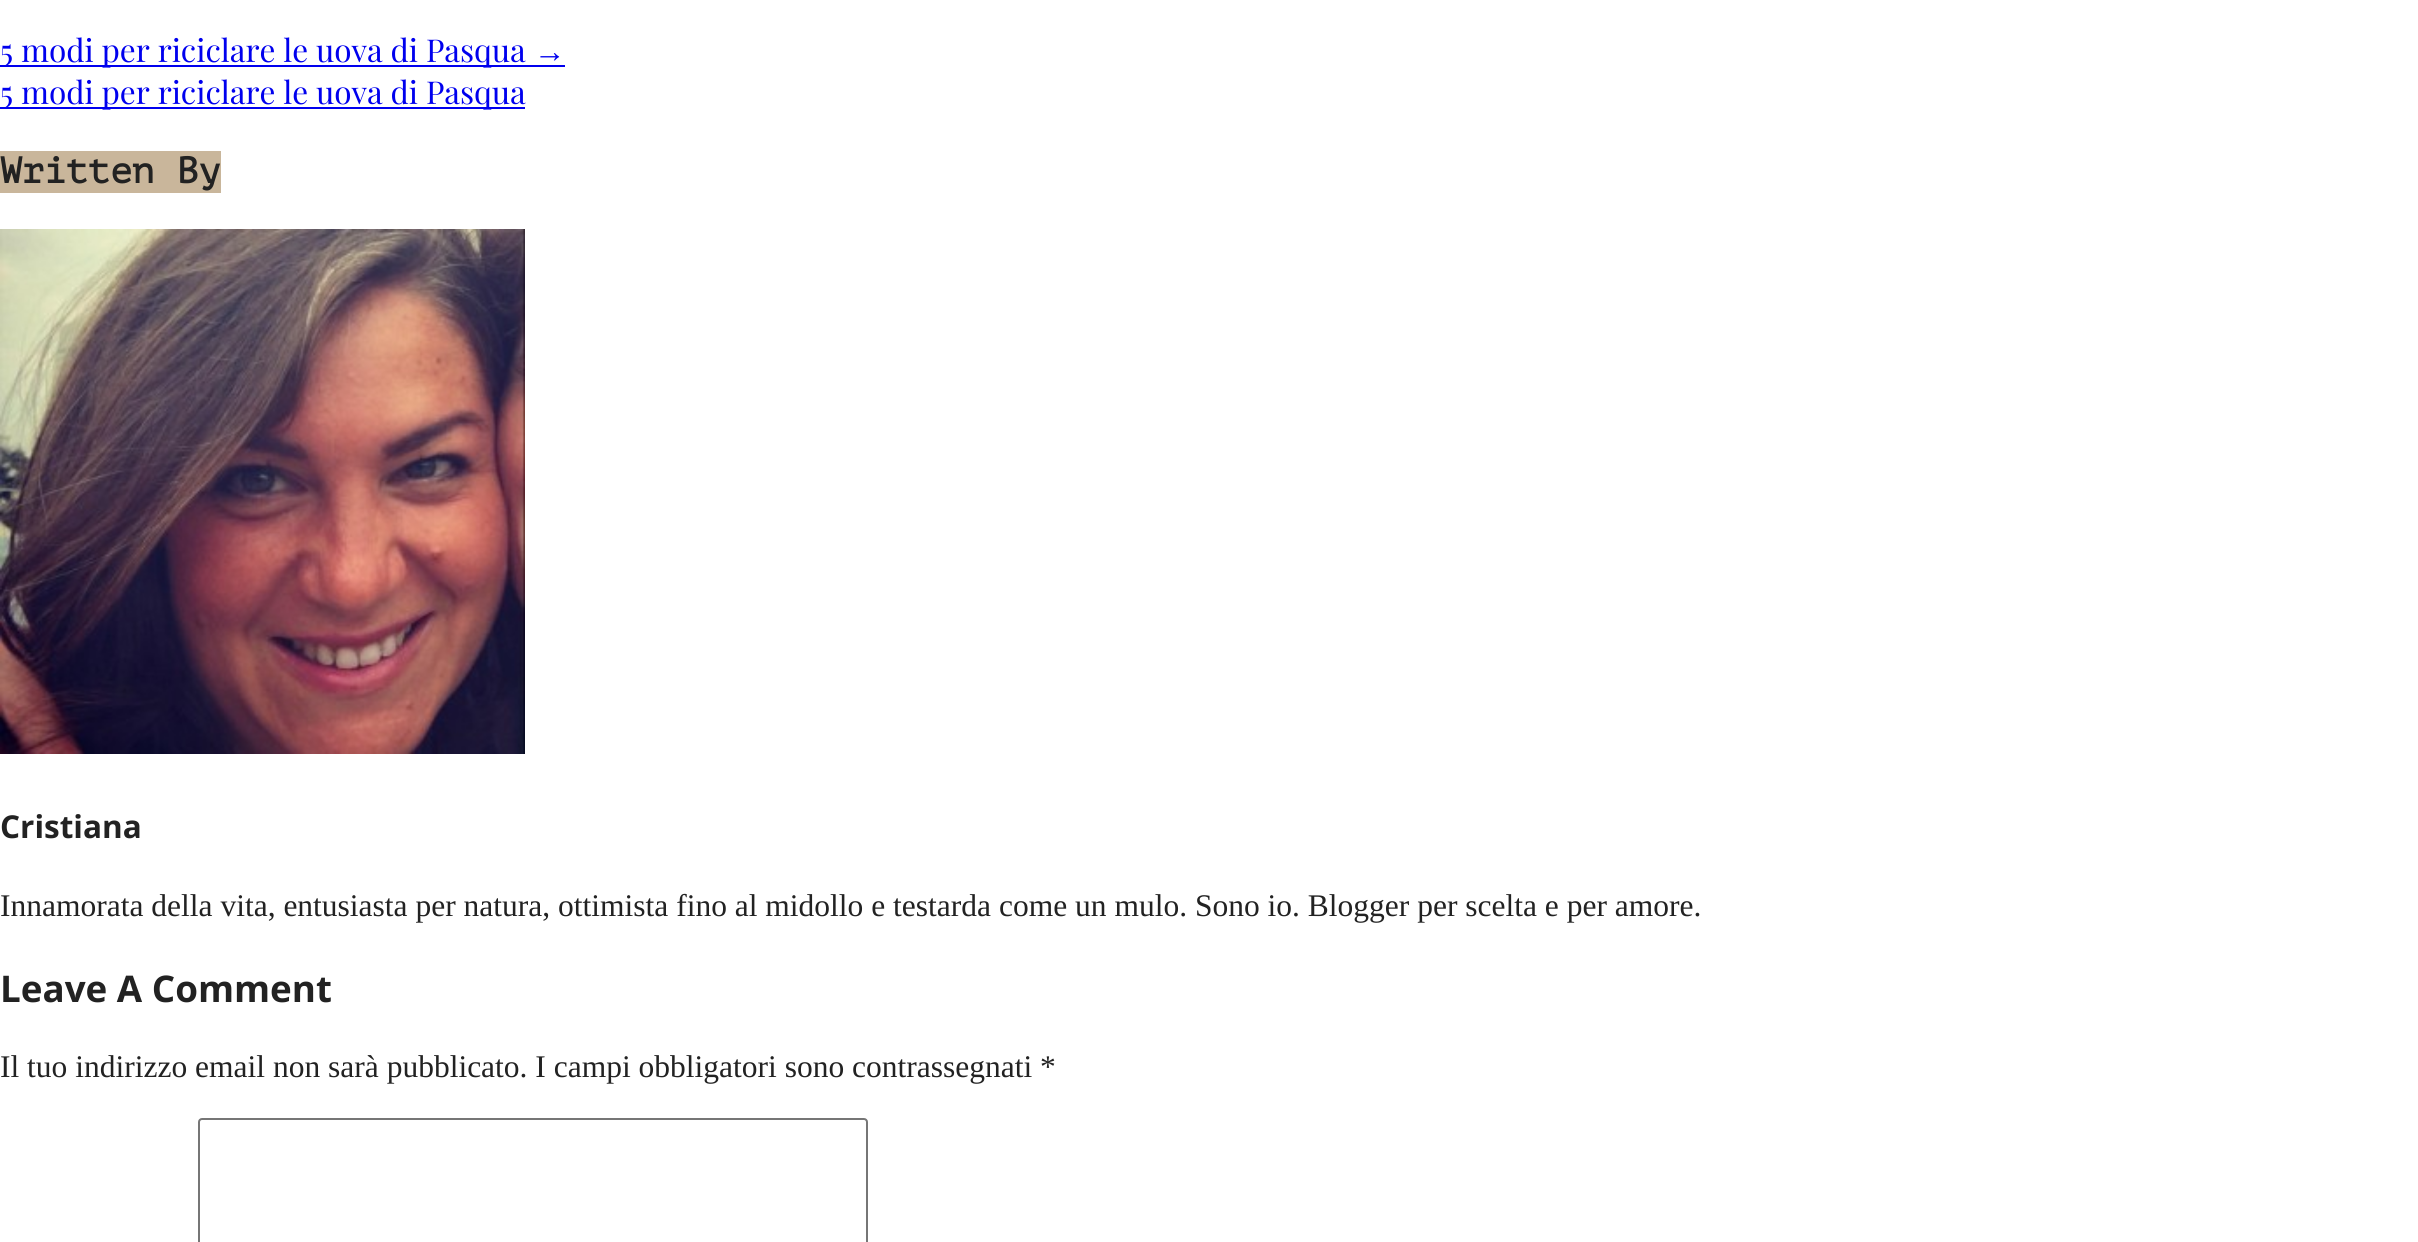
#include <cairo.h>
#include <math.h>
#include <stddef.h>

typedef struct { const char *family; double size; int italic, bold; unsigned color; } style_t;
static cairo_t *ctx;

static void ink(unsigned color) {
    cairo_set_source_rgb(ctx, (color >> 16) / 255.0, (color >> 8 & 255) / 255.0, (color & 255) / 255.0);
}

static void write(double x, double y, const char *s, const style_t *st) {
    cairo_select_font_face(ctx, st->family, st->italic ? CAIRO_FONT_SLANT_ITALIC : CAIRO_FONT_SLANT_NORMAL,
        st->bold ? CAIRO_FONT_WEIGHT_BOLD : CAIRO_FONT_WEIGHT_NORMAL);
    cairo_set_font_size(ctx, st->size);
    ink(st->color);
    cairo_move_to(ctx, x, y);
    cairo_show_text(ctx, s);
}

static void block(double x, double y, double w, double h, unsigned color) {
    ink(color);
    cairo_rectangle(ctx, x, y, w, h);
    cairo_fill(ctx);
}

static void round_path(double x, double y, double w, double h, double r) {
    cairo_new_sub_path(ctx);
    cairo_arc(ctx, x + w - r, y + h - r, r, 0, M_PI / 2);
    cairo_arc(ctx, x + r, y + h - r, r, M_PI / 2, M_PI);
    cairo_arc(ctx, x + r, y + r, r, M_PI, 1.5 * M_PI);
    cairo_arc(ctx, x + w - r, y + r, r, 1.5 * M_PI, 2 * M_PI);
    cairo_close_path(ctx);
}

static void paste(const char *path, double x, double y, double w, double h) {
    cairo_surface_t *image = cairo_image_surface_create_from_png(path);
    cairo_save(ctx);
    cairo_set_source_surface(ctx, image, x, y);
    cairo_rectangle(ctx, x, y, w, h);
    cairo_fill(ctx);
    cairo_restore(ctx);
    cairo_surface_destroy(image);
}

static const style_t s1 = {"Playfair Display", 31.5, 0, 0, 0x0000ee};
static const style_t s2 = {"Liberation Serif", 31.5, 0, 0, 0x0000ee};
static const style_t s3 = {"PT Mono", 36.75, 0, 1, 0x222222};
static const style_t s4 = {"Open Sans", 31.5, 0, 1, 0x222222};
static const style_t s5 = {"Liberation Serif", 31.5, 0, 0, 0x222222};
static const style_t s6 = {"Open Sans", 36.75, 0, 1, 0x222222};

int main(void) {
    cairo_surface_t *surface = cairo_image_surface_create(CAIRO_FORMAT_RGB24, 2418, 1242);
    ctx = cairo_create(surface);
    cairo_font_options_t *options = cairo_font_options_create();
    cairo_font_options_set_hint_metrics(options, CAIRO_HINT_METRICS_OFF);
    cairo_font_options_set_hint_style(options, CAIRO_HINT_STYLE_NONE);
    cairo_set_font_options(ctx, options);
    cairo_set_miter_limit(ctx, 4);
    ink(0xffffff);
    cairo_paint(ctx);
    block(0, 65, 565, 2, 0x0000ee);
    write(0, 62, "5 modi per riciclare le uova di Pasqua", &s1);
    write(534, 62, "→", &s2);
    block(0, 107, 525, 2, 0x0000ee);
    write(0, 104, "5 modi per riciclare le uova di Pasqua", &s1);
    block(0, 151, 221, 42, 0xc9b69b);
    write(0, 183, "Written By", &s3);
    paste("pic1.png", 0, 229, 525, 525);
    write(0, 838, "Cristiana", &s4);
    write(0, 916, "Innamorata della vita, entusiasta per natura, ottimista fino al midollo e testarda come un mulo. Sono io. Blogger per scelta e per amore.", &s5);
    write(0, 1002, "Leave A Comment", &s6);
    write(0, 1077, "Il tuo indirizzo email non sarà pubblicato. I campi obbligatori sono contrassegnati *", &s5);
    round_path(199, 1119, 668, 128, 3);
    ink(0x767676);
    cairo_stroke(ctx);
    cairo_surface_write_to_png(surface, "screenshot.png");
    cairo_font_options_destroy(options);
    cairo_destroy(ctx);
    cairo_surface_destroy(surface);
    return 0;
}
